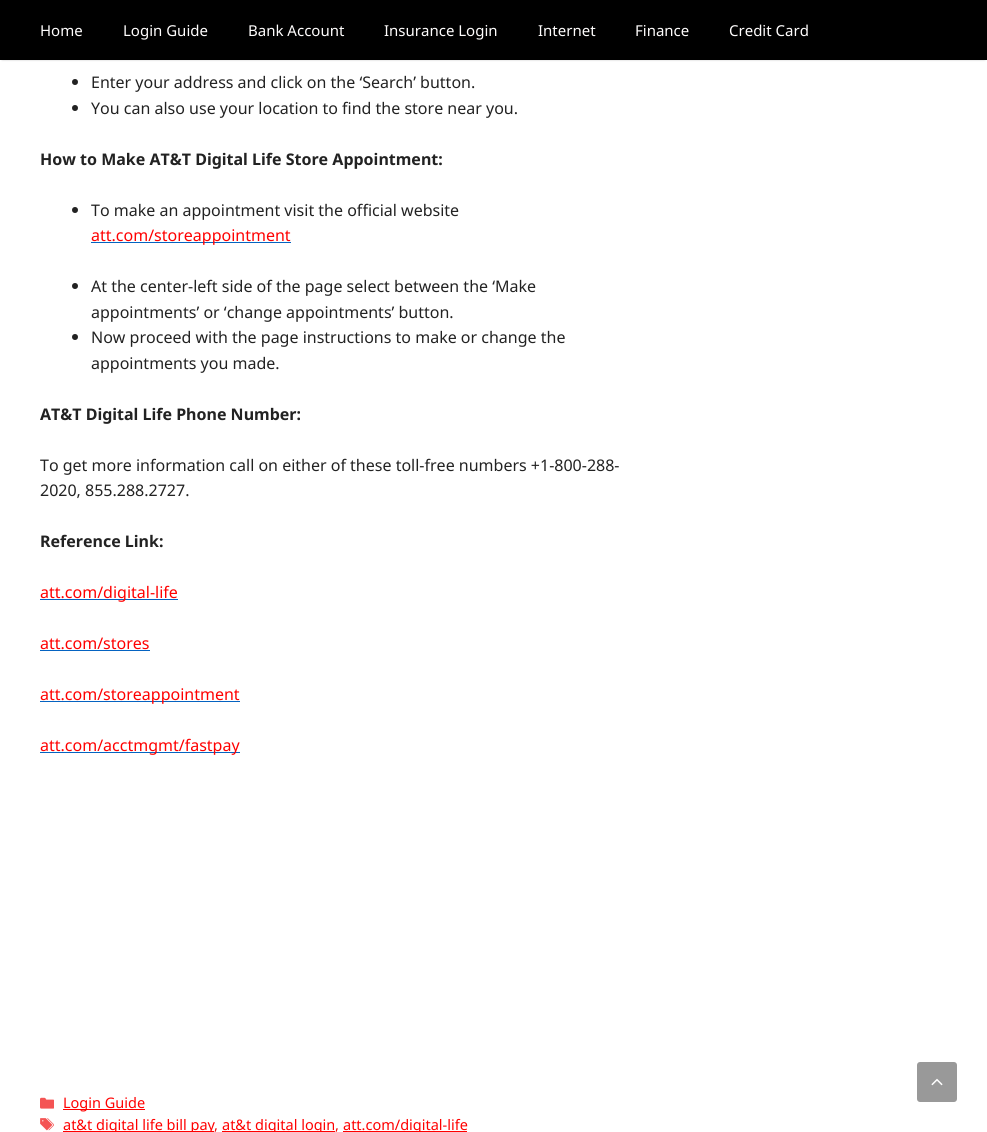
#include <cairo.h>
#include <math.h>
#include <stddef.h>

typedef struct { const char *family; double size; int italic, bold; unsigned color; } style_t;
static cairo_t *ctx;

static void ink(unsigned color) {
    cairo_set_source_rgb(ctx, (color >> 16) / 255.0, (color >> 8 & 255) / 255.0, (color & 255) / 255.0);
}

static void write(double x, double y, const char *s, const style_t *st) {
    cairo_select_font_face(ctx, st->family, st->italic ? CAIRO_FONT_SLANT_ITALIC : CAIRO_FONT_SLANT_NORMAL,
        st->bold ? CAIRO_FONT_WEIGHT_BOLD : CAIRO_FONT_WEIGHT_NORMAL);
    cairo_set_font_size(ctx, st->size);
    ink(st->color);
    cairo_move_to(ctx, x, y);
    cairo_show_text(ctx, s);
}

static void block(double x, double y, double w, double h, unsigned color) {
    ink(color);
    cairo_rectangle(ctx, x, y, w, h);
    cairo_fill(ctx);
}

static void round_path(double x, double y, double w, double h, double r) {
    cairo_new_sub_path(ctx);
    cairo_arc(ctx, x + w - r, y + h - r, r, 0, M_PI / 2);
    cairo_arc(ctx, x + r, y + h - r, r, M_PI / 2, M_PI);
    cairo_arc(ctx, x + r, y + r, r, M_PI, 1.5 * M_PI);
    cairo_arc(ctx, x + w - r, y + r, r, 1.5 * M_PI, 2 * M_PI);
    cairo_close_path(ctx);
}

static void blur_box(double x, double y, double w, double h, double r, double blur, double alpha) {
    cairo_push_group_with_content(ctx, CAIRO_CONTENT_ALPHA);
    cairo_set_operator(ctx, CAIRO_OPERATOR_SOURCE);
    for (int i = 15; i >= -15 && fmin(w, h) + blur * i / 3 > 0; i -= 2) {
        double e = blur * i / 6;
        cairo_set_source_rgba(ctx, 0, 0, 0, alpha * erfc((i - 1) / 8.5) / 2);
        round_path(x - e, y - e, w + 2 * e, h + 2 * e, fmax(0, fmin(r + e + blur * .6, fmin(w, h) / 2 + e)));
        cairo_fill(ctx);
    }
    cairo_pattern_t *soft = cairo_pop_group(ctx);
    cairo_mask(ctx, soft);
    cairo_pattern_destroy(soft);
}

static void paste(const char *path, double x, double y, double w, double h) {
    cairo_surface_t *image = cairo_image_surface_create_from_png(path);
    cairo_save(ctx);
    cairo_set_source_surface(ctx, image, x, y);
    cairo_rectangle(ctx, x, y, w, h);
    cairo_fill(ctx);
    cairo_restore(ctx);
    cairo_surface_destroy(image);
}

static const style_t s1 = {"Noto Sans", 15, 0, 0, 0xfffdfd};
static const style_t s2 = {"Noto Sans", 16, 0, 0, 0x222222};
static const style_t s3 = {"Noto Sans", 16, 0, 1, 0x222222};
static const style_t s4 = {"Noto Sans", 16, 0, 0, 0xff0000};
static const style_t s5 = {"Noto Sans", 14.5, 0, 0, 0xff0000};
static const style_t s6 = {"Noto Sans", 14.5, 0, 0, 0xef0a0a};

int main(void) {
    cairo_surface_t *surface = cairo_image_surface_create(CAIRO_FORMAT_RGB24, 987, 1132);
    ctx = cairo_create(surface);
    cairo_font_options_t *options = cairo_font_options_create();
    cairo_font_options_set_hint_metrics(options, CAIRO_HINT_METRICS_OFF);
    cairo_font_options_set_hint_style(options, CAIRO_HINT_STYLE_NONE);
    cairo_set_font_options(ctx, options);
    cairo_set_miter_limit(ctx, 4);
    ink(0xffffff);
    cairo_paint(ctx);
    ink(0x000000);
    blur_box(2, 4, 983, 56, 0, 1, 0.2);
    block(0, 0, 987, 60, 0x000000);
    write(40, 36, "Home", &s1);
    write(123, 36, "Login Guide", &s1);
    write(248, 36, "Bank Account", &s1);
    write(384, 36, "Insurance Login", &s1);
    write(538, 36, "Internet", &s1);
    write(635, 36, "Finance", &s1);
    write(729, 36, "Credit Card", &s1);
    ink(0x222222);
    cairo_new_path(ctx);
    cairo_arc(ctx, 75, 82, 3, 0, 2 * M_PI);
    cairo_fill(ctx);
    write(91, 88, "Enter your address and click on the ‘Search’ button.", &s2);
    cairo_new_path(ctx);
    cairo_arc(ctx, 75, 108, 3, 0, 2 * M_PI);
    cairo_fill(ctx);
    write(91, 114, "You can also use your location to find the store near you.", &s2);
    write(40, 165, "How to Make AT&T Digital Life Store Appointment:", &s3);
    cairo_new_path(ctx);
    cairo_arc(ctx, 75, 210, 3, 0, 2 * M_PI);
    cairo_fill(ctx);
    write(91, 216, "To make an appointment visit the official website", &s2);
    block(91, 242, 200, 1, 0x0563c1);
    write(91, 241, "att.com/storeappointment", &s4);
    ink(0x222222);
    cairo_new_path(ctx);
    cairo_arc(ctx, 75, 286, 3, 0, 2 * M_PI);
    cairo_fill(ctx);
    write(91, 292, "At the center-left side of the page select between the ‘Make", &s2);
    write(91, 318, "appointments’ or ‘change appointments’ button.", &s2);
    cairo_new_path(ctx);
    cairo_arc(ctx, 75, 337, 3, 0, 2 * M_PI);
    cairo_fill(ctx);
    write(91, 343, "Now proceed with the page instructions to make or change the", &s2);
    write(91, 369, "appointments you made.", &s2);
    write(40, 420, "AT&T Digital Life Phone Number:", &s3);
    write(40, 471, "To get more information call on either of these toll-free numbers +1-800-288-", &s2);
    write(40, 496, "2020, 855.288.2727.", &s2);
    write(40, 547, "Reference Link:", &s3);
    block(40, 599, 138, 1, 0x0563c1);
    write(40, 598, "att.com/digital-life", &s4);
    write(40, 649, "att.com/stores", &s4);
    block(40, 650, 110, 1, 0x0563c1);
    block(40, 701, 200, 1, 0x0563c1);
    write(40, 700, "att.com/storeappointment", &s4);
    block(40, 752, 200, 1, 0x0563c1);
    write(40, 751, "att.com/acctmgmt/fastpay", &s4);
    paste("pic1.png", 40, 1097, 14, 12);
    block(63, 1109, 82, 1, 0xff0000);
    write(63, 1108, "Login Guide", &s5);
    paste("pic2.png", 40, 1118, 14, 13);
    block(63, 1131, 151, 1, 0xff0000);
    write(63, 1130, "at&t digital life bill pay", &s5);
    write(214, 1130, ",", &s6);
    block(222, 1131, 113, 1, 0xff0000);
    write(222, 1130, "at&t digital login", &s5);
    write(335, 1130, ",", &s6);
    block(343, 1131, 124, 1, 0xff0000);
    write(343, 1130, "att.com/digital-life", &s5);
    ink(0x999999);
    round_path(917, 1062, 40, 40, 3);
    cairo_fill(ctx);
    paste("pic3.png", 931, 1078, 12, 8);
    cairo_surface_write_to_png(surface, "screenshot.png");
    cairo_font_options_destroy(options);
    cairo_destroy(ctx);
    cairo_surface_destroy(surface);
    return 0;
}
